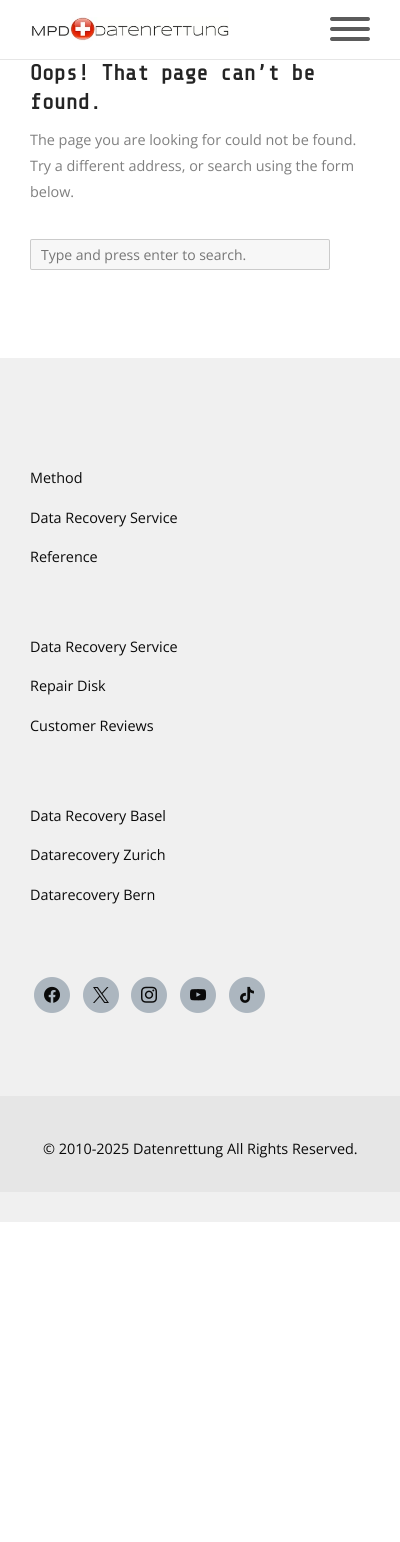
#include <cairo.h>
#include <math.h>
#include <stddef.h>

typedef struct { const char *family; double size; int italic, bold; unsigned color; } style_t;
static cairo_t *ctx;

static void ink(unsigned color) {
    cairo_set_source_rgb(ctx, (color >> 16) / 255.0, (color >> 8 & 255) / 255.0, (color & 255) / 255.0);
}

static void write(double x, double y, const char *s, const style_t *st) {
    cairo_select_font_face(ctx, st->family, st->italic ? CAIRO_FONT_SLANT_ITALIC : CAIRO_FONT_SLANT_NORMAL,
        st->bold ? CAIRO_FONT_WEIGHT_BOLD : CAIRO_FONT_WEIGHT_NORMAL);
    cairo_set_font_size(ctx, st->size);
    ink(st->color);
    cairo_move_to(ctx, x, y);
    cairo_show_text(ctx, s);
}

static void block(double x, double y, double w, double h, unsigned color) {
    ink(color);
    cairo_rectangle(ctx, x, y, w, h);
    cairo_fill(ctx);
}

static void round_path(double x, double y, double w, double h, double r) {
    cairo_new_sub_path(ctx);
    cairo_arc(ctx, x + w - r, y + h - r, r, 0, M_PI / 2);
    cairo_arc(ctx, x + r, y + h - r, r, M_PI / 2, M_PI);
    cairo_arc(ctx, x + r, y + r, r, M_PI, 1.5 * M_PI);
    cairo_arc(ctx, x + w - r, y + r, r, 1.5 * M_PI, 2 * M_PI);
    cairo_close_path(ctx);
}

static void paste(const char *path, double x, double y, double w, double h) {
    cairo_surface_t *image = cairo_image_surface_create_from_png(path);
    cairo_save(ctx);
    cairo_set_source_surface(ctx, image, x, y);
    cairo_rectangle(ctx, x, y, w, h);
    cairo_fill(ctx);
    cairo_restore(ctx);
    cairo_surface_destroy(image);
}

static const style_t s1 = {"Share Tech Mono", 22, 0, 1, 0x242424};
static const style_t s2 = {"Open Sans", 14.4, 0, 0, 0x7f7f7f};
static const style_t s3 = {"Open Sans", 14, 0, 0, 0x757575};
static const style_t s4 = {"Open Sans", 14.4, 0, 0, 0x0a0a0a};

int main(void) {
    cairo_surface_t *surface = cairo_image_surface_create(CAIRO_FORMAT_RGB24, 400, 1542);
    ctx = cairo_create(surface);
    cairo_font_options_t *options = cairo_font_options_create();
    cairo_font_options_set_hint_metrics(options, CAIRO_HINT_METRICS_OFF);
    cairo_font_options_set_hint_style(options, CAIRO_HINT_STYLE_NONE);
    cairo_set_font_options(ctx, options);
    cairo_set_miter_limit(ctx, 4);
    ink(0xffffff);
    cairo_paint(ctx);
    block(0, 59, 400, 1, 0xe6e6e6);
    paste("pic1.png", 31, 17, 198, 24);
    ink(0x5b5b5b);
    round_path(330, 27, 40, 4, 2);
    cairo_fill(ctx);
    round_path(330, 17, 40, 4, 2);
    cairo_fill(ctx);
    round_path(330, 37, 40, 4, 2);
    cairo_fill(ctx);
    write(30, 80, "Oops! That page can’t be", &s1);
    write(30, 109, "found.", &s1);
    write(30, 145, "The page you are looking for could not be found.", &s2);
    write(30, 171, "Try a different address, or search using the form", &s2);
    write(30, 197, "below.", &s2);
    ink(0xf7f7f7);
    round_path(30.5, 239.5, 299, 30, 1.5);
    cairo_fill_preserve(ctx);
    ink(0xcbcbcb);
    cairo_set_line_width(ctx, 1);
    cairo_stroke(ctx);
    write(41, 260, "Type and press enter to search.", &s3);
    block(0, 358, 400, 864, 0xf0f0f0);
    write(30, 483, "Method", &s4);
    write(30, 523, "Data Recovery Service", &s4);
    write(30, 562, "Reference", &s4);
    write(30, 652, "Data Recovery Service", &s4);
    write(30, 691, "Repair Disk", &s4);
    write(30, 731, "Customer Reviews", &s4);
    write(30, 821, "Data Recovery Basel", &s4);
    write(30, 860, "Datarecovery Zurich", &s4);
    write(30, 900, "Datarecovery Bern", &s4);
    ink(0xacb6bf);
    cairo_new_path(ctx);
    cairo_arc(ctx, 52, 995, 18, 0, 2 * M_PI);
    cairo_fill(ctx);
    paste("pic2.png", 44, 986, 16, 17);
    cairo_arc(ctx, 101, 995, 18, 0, 2 * M_PI);
    cairo_fill(ctx);
    paste("pic3.png", 93, 987, 16, 16);
    cairo_arc(ctx, 149, 995, 18, 0, 2 * M_PI);
    cairo_fill(ctx);
    paste("pic4.png", 141, 986, 16, 17);
    cairo_arc(ctx, 198, 995, 18, 0, 2 * M_PI);
    cairo_fill(ctx);
    paste("pic5.png", 190, 989, 17, 12);
    cairo_arc(ctx, 247, 995, 18, 0, 2 * M_PI);
    cairo_fill(ctx);
    paste("pic6.png", 240, 986, 14, 17);
    block(0, 1096, 400, 96, 0xe6e6e6);
    write(43, 1154, "© 2010-2025 Datenrettung All Rights Reserved.", &s4);
    cairo_surface_write_to_png(surface, "screenshot.png");
    cairo_font_options_destroy(options);
    cairo_destroy(ctx);
    cairo_surface_destroy(surface);
    return 0;
}
